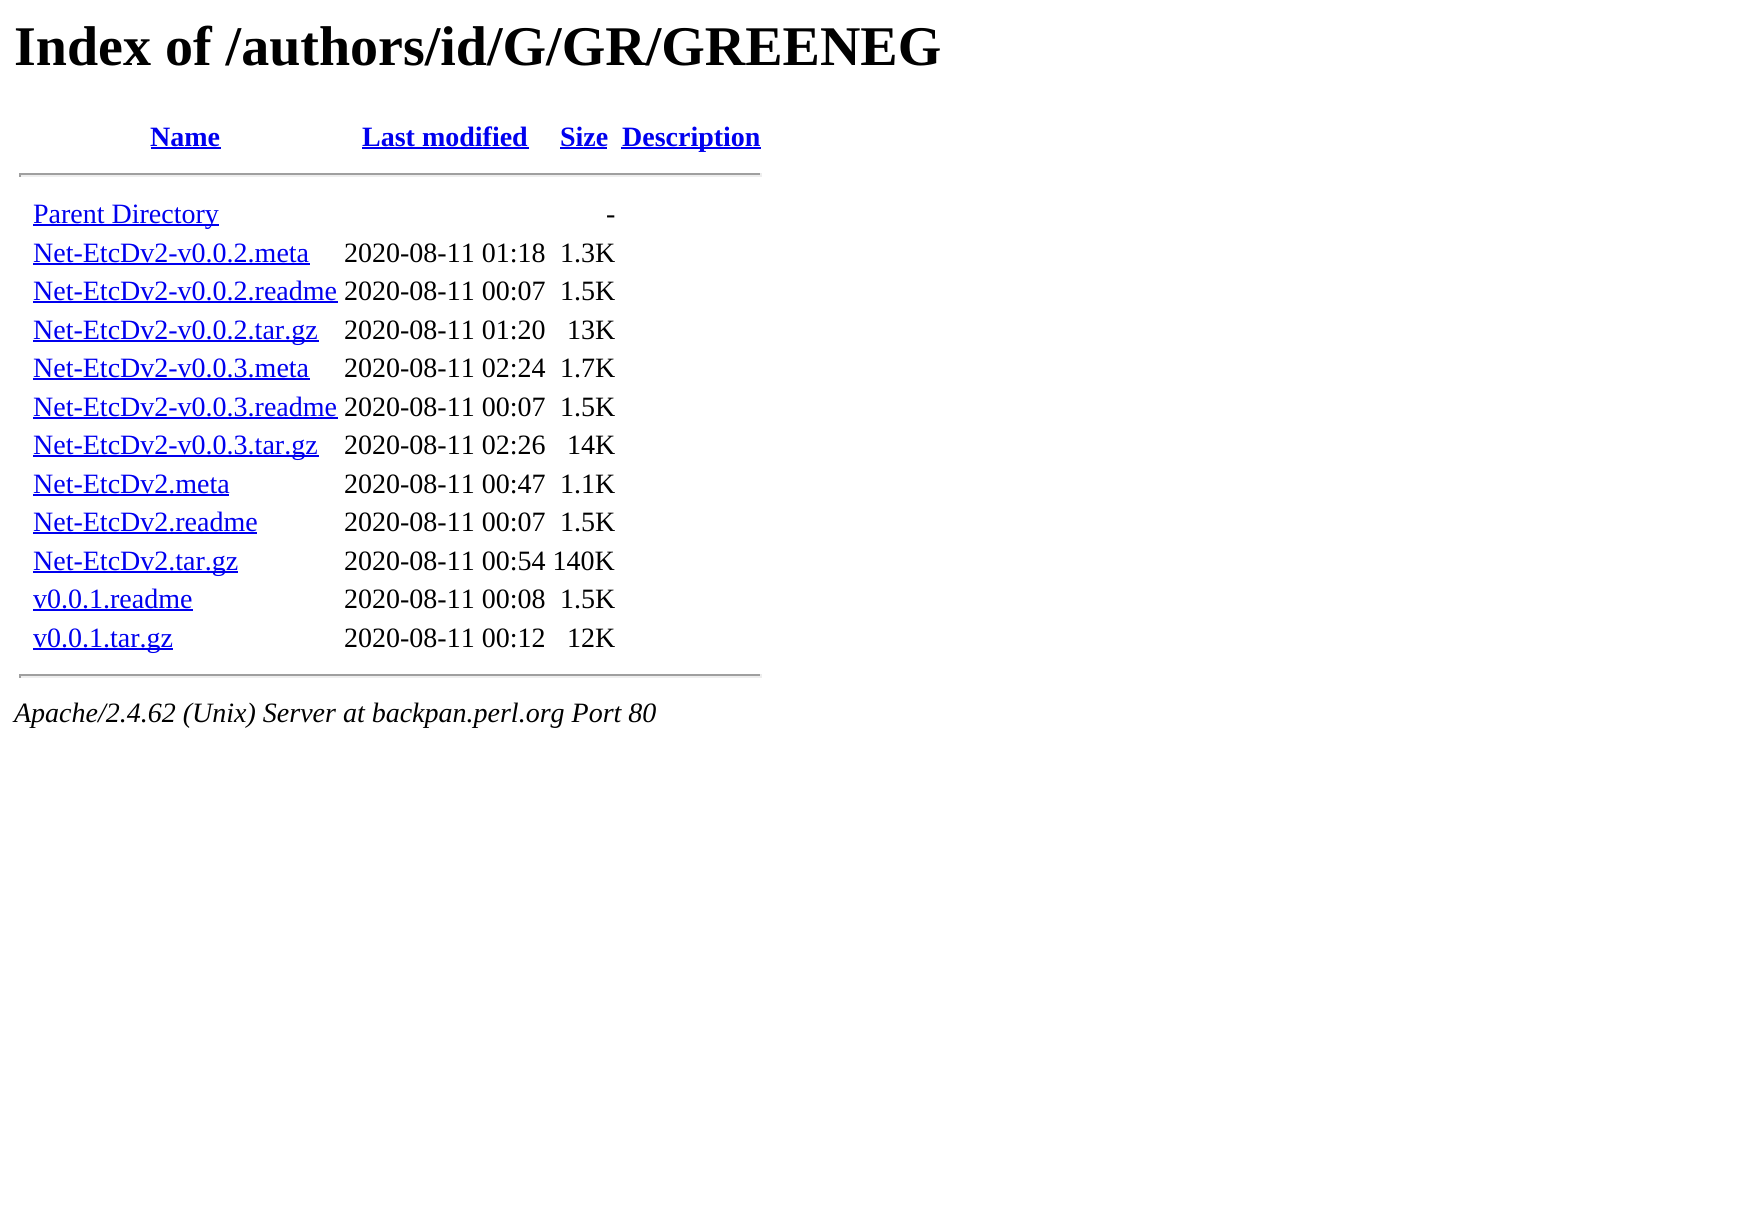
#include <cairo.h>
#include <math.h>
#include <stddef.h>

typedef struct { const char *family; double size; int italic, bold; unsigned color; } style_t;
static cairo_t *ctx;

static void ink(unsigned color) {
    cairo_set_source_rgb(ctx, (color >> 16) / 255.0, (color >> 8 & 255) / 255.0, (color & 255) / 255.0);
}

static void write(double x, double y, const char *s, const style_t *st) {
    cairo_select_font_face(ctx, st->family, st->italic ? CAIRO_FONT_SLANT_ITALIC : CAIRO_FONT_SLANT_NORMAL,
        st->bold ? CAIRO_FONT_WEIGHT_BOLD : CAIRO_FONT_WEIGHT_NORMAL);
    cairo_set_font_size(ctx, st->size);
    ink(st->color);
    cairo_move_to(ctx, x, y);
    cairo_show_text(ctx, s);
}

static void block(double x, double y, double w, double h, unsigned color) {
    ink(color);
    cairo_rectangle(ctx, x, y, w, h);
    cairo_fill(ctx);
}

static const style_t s1 = {"Liberation Serif", 56, 0, 1, 0x000000};
static const style_t s2 = {"Liberation Serif", 28, 0, 1, 0x0000ee};
static const style_t s3 = {"Liberation Serif", 28, 0, 0, 0x0000ee};
static const style_t s4 = {"Liberation Serif", 28, 0, 0, 0x000000};
static const style_t s5 = {"Liberation Serif", 28, 1, 0, 0x000000};

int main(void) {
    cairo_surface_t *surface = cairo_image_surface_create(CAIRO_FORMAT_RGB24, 1737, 1224);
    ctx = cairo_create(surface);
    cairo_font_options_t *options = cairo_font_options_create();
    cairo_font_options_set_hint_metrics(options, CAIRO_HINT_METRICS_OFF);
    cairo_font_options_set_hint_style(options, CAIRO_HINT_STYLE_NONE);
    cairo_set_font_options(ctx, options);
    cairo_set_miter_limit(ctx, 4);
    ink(0xffffff);
    cairo_paint(ctx);
    write(14, 65, "Index of /authors/id/G/GR/GREENEG", &s1);
    write(150, 146, "Name", &s2);
    block(151, 147, 70, 2, 0x0000ee);
    write(362, 146, "Last modified", &s2);
    block(362, 147, 167, 2, 0x0000ee);
    write(560, 146, "Size", &s2);
    block(560, 147, 47, 2, 0x0000ee);
    block(621, 147, 140, 2, 0x0000ee);
    write(622, 146, "Description", &s2);
    block(19, 173, 742, 2, 0x9f9f9f);
    block(760, 173, 2, 4, 0xeeeeee);
    block(19, 175, 742, 2, 0xeeeeee);
    block(19, 173, 2, 4, 0x9f9f9f);
    block(33, 224, 186, 2, 0x0000ee);
    write(33, 223, "Parent Directory", &s3);
    write(606, 223, "-", &s4);
    write(33, 262, "Net-EtcDv2-v0.0.2.meta", &s3);
    block(33, 263, 277, 2, 0x0000ee);
    write(344, 262, "2020-08-11 01:18", &s4);
    write(560, 262, "1.3K", &s4);
    write(33, 300, "Net-EtcDv2-v0.0.2.readme", &s3);
    block(33, 301, 305, 2, 0x0000ee);
    write(344, 300, "2020-08-11 00:07", &s4);
    write(560, 300, "1.5K", &s4);
    block(33, 340, 286, 2, 0x0000ee);
    write(33, 339, "Net-EtcDv2-v0.0.2.tar.gz", &s3);
    write(344, 339, "2020-08-11 01:20", &s4);
    write(567, 339, "13K", &s4);
    write(33, 377, "Net-EtcDv2-v0.0.3.meta", &s3);
    block(33, 378, 277, 2, 0x0000ee);
    write(344, 377, "2020-08-11 02:24", &s4);
    write(560, 377, "1.7K", &s4);
    write(33, 416, "Net-EtcDv2-v0.0.3.readme", &s3);
    block(33, 417, 305, 2, 0x0000ee);
    write(344, 416, "2020-08-11 00:07", &s4);
    write(560, 416, "1.5K", &s4);
    block(33, 455, 286, 2, 0x0000ee);
    write(33, 454, "Net-EtcDv2-v0.0.3.tar.gz", &s3);
    write(344, 454, "2020-08-11 02:26", &s4);
    write(567, 454, "14K", &s4);
    write(33, 493, "Net-EtcDv2.meta", &s3);
    block(33, 494, 196, 2, 0x0000ee);
    write(344, 493, "2020-08-11 00:47", &s4);
    write(560, 493, "1.1K", &s4);
    write(33, 531, "Net-EtcDv2.readme", &s3);
    block(33, 532, 224, 2, 0x0000ee);
    write(344, 531, "2020-08-11 00:07", &s4);
    write(560, 531, "1.5K", &s4);
    block(33, 571, 205, 2, 0x0000ee);
    write(33, 570, "Net-EtcDv2.tar.gz", &s3);
    write(344, 570, "2020-08-11 00:54 140K", &s4);
    write(33, 608, "v0.0.1.readme", &s3);
    block(33, 609, 160, 2, 0x0000ee);
    write(344, 608, "2020-08-11 00:08", &s4);
    write(560, 608, "1.5K", &s4);
    block(33, 648, 140, 2, 0x0000ee);
    write(33, 647, "v0.0.1.tar.gz", &s3);
    write(344, 647, "2020-08-11 00:12", &s4);
    write(567, 647, "12K", &s4);
    block(19, 674, 742, 2, 0x9f9f9f);
    block(760, 674, 2, 4, 0xeeeeee);
    block(19, 676, 742, 2, 0xeeeeee);
    block(19, 674, 2, 4, 0x9f9f9f);
    write(14, 722, "Apache/2.4.62 (Unix) Server at backpan.perl.org Port 80", &s5);
    cairo_surface_write_to_png(surface, "screenshot.png");
    cairo_font_options_destroy(options);
    cairo_destroy(ctx);
    cairo_surface_destroy(surface);
    return 0;
}
